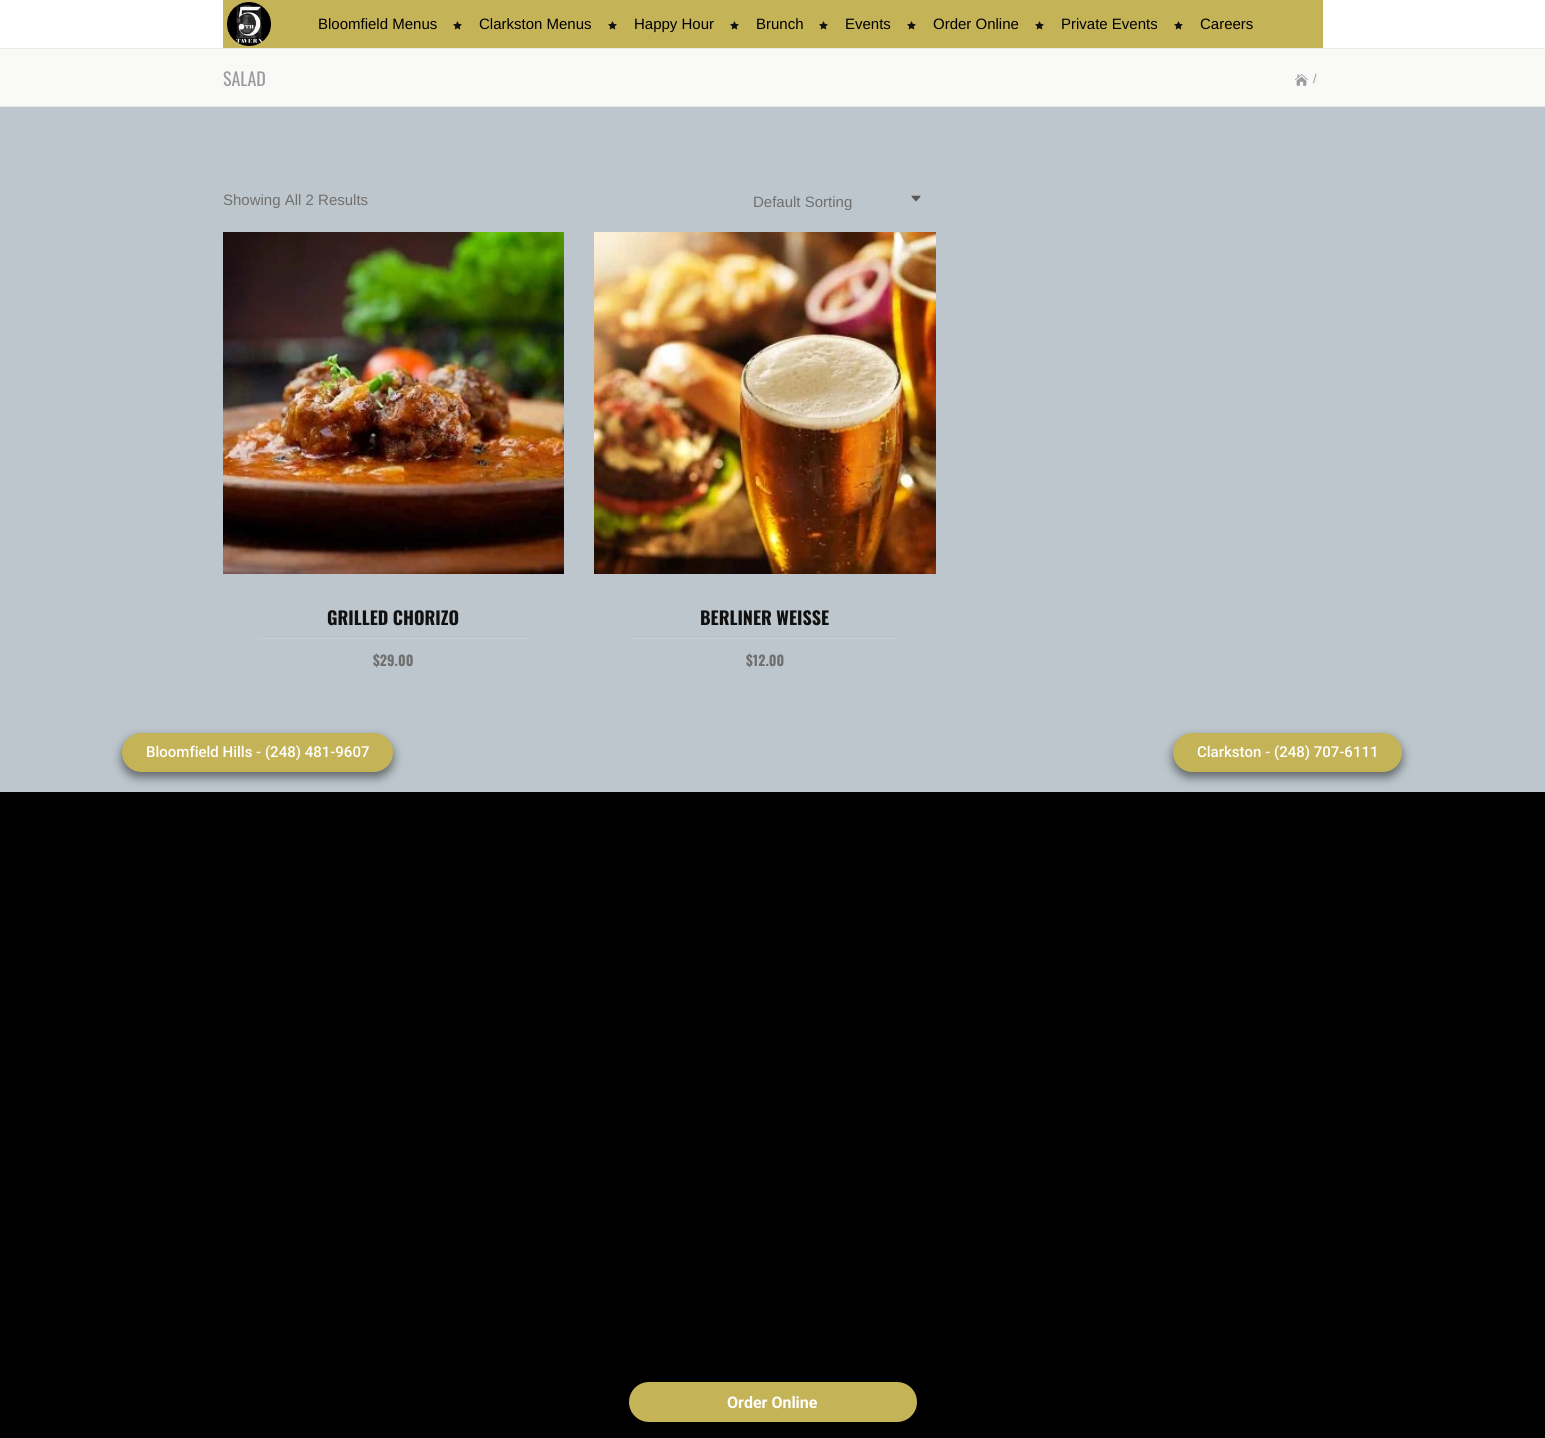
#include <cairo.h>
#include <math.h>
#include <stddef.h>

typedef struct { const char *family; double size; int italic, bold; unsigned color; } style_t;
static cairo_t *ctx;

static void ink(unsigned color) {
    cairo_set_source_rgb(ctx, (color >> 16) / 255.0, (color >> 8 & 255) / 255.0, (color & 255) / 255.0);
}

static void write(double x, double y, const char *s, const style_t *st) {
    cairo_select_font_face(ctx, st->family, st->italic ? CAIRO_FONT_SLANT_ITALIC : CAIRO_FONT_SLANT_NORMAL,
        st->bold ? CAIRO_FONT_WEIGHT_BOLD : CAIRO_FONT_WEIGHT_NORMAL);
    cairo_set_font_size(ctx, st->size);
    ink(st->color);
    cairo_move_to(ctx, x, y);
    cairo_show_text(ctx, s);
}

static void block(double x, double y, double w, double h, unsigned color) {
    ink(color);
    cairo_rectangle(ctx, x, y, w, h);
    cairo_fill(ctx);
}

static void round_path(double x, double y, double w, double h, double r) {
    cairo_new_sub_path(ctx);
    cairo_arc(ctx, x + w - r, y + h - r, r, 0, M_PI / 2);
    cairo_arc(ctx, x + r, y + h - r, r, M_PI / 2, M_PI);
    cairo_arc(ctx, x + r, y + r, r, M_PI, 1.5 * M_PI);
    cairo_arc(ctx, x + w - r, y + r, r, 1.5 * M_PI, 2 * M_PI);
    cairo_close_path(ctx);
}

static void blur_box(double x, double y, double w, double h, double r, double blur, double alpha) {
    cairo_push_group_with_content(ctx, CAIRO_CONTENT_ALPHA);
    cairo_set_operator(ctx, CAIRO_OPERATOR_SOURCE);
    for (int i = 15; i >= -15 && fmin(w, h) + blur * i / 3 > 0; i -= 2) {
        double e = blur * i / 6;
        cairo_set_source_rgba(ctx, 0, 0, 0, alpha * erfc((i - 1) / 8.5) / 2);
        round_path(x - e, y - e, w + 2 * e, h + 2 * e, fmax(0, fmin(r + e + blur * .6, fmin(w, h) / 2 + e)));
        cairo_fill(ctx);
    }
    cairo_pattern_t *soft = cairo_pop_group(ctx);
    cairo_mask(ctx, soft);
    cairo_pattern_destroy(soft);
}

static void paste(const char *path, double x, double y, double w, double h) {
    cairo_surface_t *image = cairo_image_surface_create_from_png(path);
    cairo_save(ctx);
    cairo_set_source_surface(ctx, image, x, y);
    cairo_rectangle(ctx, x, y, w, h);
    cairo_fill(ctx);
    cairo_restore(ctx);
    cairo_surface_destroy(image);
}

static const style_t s1 = {"Liberation Sans", 15, 0, 0, 0x000000};
static const style_t s2 = {"Oswald", 18, 0, 0, 0x9b9b9b};
static const style_t s3 = {"Liberation Sans", 13, 0, 0, 0x9b9b9b};
static const style_t s4 = {"Liberation Sans", 15, 0, 0, 0x707070};
static const style_t s5 = {"Oswald", 18, 0, 1, 0x111111};
static const style_t s6 = {"Oswald", 14, 0, 1, 0x707070};
static const style_t s7 = {"Roboto Medium", 15, 0, 0, 0xffffff};
static const style_t s8 = {"Roboto", 16, 0, 1, 0xffffff};

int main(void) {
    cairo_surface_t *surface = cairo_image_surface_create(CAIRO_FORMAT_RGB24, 1545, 1438);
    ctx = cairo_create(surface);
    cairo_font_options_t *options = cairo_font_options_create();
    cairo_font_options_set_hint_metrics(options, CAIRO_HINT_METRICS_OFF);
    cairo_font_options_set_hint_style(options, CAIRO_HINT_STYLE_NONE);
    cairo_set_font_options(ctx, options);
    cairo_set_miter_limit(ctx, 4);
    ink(0x000000);
    cairo_paint(ctx);
    block(0, 107, 1545, 685, 0xbcc6cc);
    block(0, 0, 1545, 48, 0xffffff);
    block(0, 48, 1545, 1, 0xe9e9e8);
    block(223, 0, 1100, 48, 0xc5b358);
    paste("pic1.png", 227, 2, 44, 44);
    write(318, 29, "Bloomfield Menus", &s1);
    paste("pic2.png", 453, 21, 9, 9);
    write(479, 29, "Clarkston Menus", &s1);
    paste("pic2.png", 608, 21, 9, 9);
    write(634, 29, "Happy Hour", &s1);
    paste("pic2.png", 730, 21, 9, 9);
    write(756, 29, "Brunch", &s1);
    paste("pic2.png", 819, 21, 9, 9);
    write(845, 29, "Events", &s1);
    paste("pic2.png", 907, 21, 9, 9);
    write(933, 29, "Order Online", &s1);
    paste("pic2.png", 1035, 21, 9, 9);
    write(1061, 29, "Private Events", &s1);
    paste("pic2.png", 1174, 21, 9, 9);
    write(1200, 29, "Careers", &s1);
    block(0, 49, 1545, 57, 0xf9f9f8);
    block(0, 106, 1545, 1, 0xe9e9e8);
    write(223, 86, "SALAD", &s2);
    paste("pic3.png", 1295, 74, 13, 12);
    write(1313, 83, "/", &s3);
    write(223, 205, "Showing All 2 Results", &s4);
    write(753, 207, "Default Sorting", &s4);
    paste("pic4.png", 911, 195, 10, 7);
    paste("pic5.png", 223, 232, 341, 342);
    cairo_new_path(ctx);
    cairo_move_to(ctx, 260, 638.5);
    cairo_line_to(ctx, 527, 638.5);
    ink(0xd7d7d7);
    cairo_set_line_width(ctx, 1);
    cairo_set_dash(ctx, (double[]){1, 1}, 2, 0);
    cairo_stroke(ctx);
    write(327, 625, "GRILLED CHORIZO", &s5);
    write(373, 666, "$29.00", &s6);
    paste("pic6.png", 594, 232, 342, 342);
    cairo_new_path(ctx);
    cairo_move_to(ctx, 631, 638.5);
    cairo_line_to(ctx, 899, 638.5);
    ink(0xd7d7d7);
    cairo_stroke(ctx);
    write(700, 625, "BERLINER WEISSE", &s5);
    write(746, 666, "$12.00", &s6);
    ink(0x000000);
    blur_box(122, 738, 271, 39, 19.5, 5, 0.5);
    ink(0xc5b357);
    round_path(122, 733, 271, 39, 19.5);
    cairo_fill(ctx);
    write(146, 757, "Bloomfield Hills - (248) 481-9607", &s7);
    ink(0x000000);
    blur_box(1173, 738, 229, 39, 19.5, 5, 0.5);
    ink(0xc5b357);
    round_path(1173, 733, 229, 39, 19.5);
    cairo_fill(ctx);
    write(1197, 757, "Clarkston - (248) 707-6111", &s7);
    ink(0xc5b357);
    round_path(629, 1382, 288, 40, 20);
    cairo_fill(ctx);
    write(727, 1408, "Order Online", &s8);
    cairo_surface_write_to_png(surface, "screenshot.png");
    cairo_font_options_destroy(options);
    cairo_destroy(ctx);
    cairo_surface_destroy(surface);
    return 0;
}
